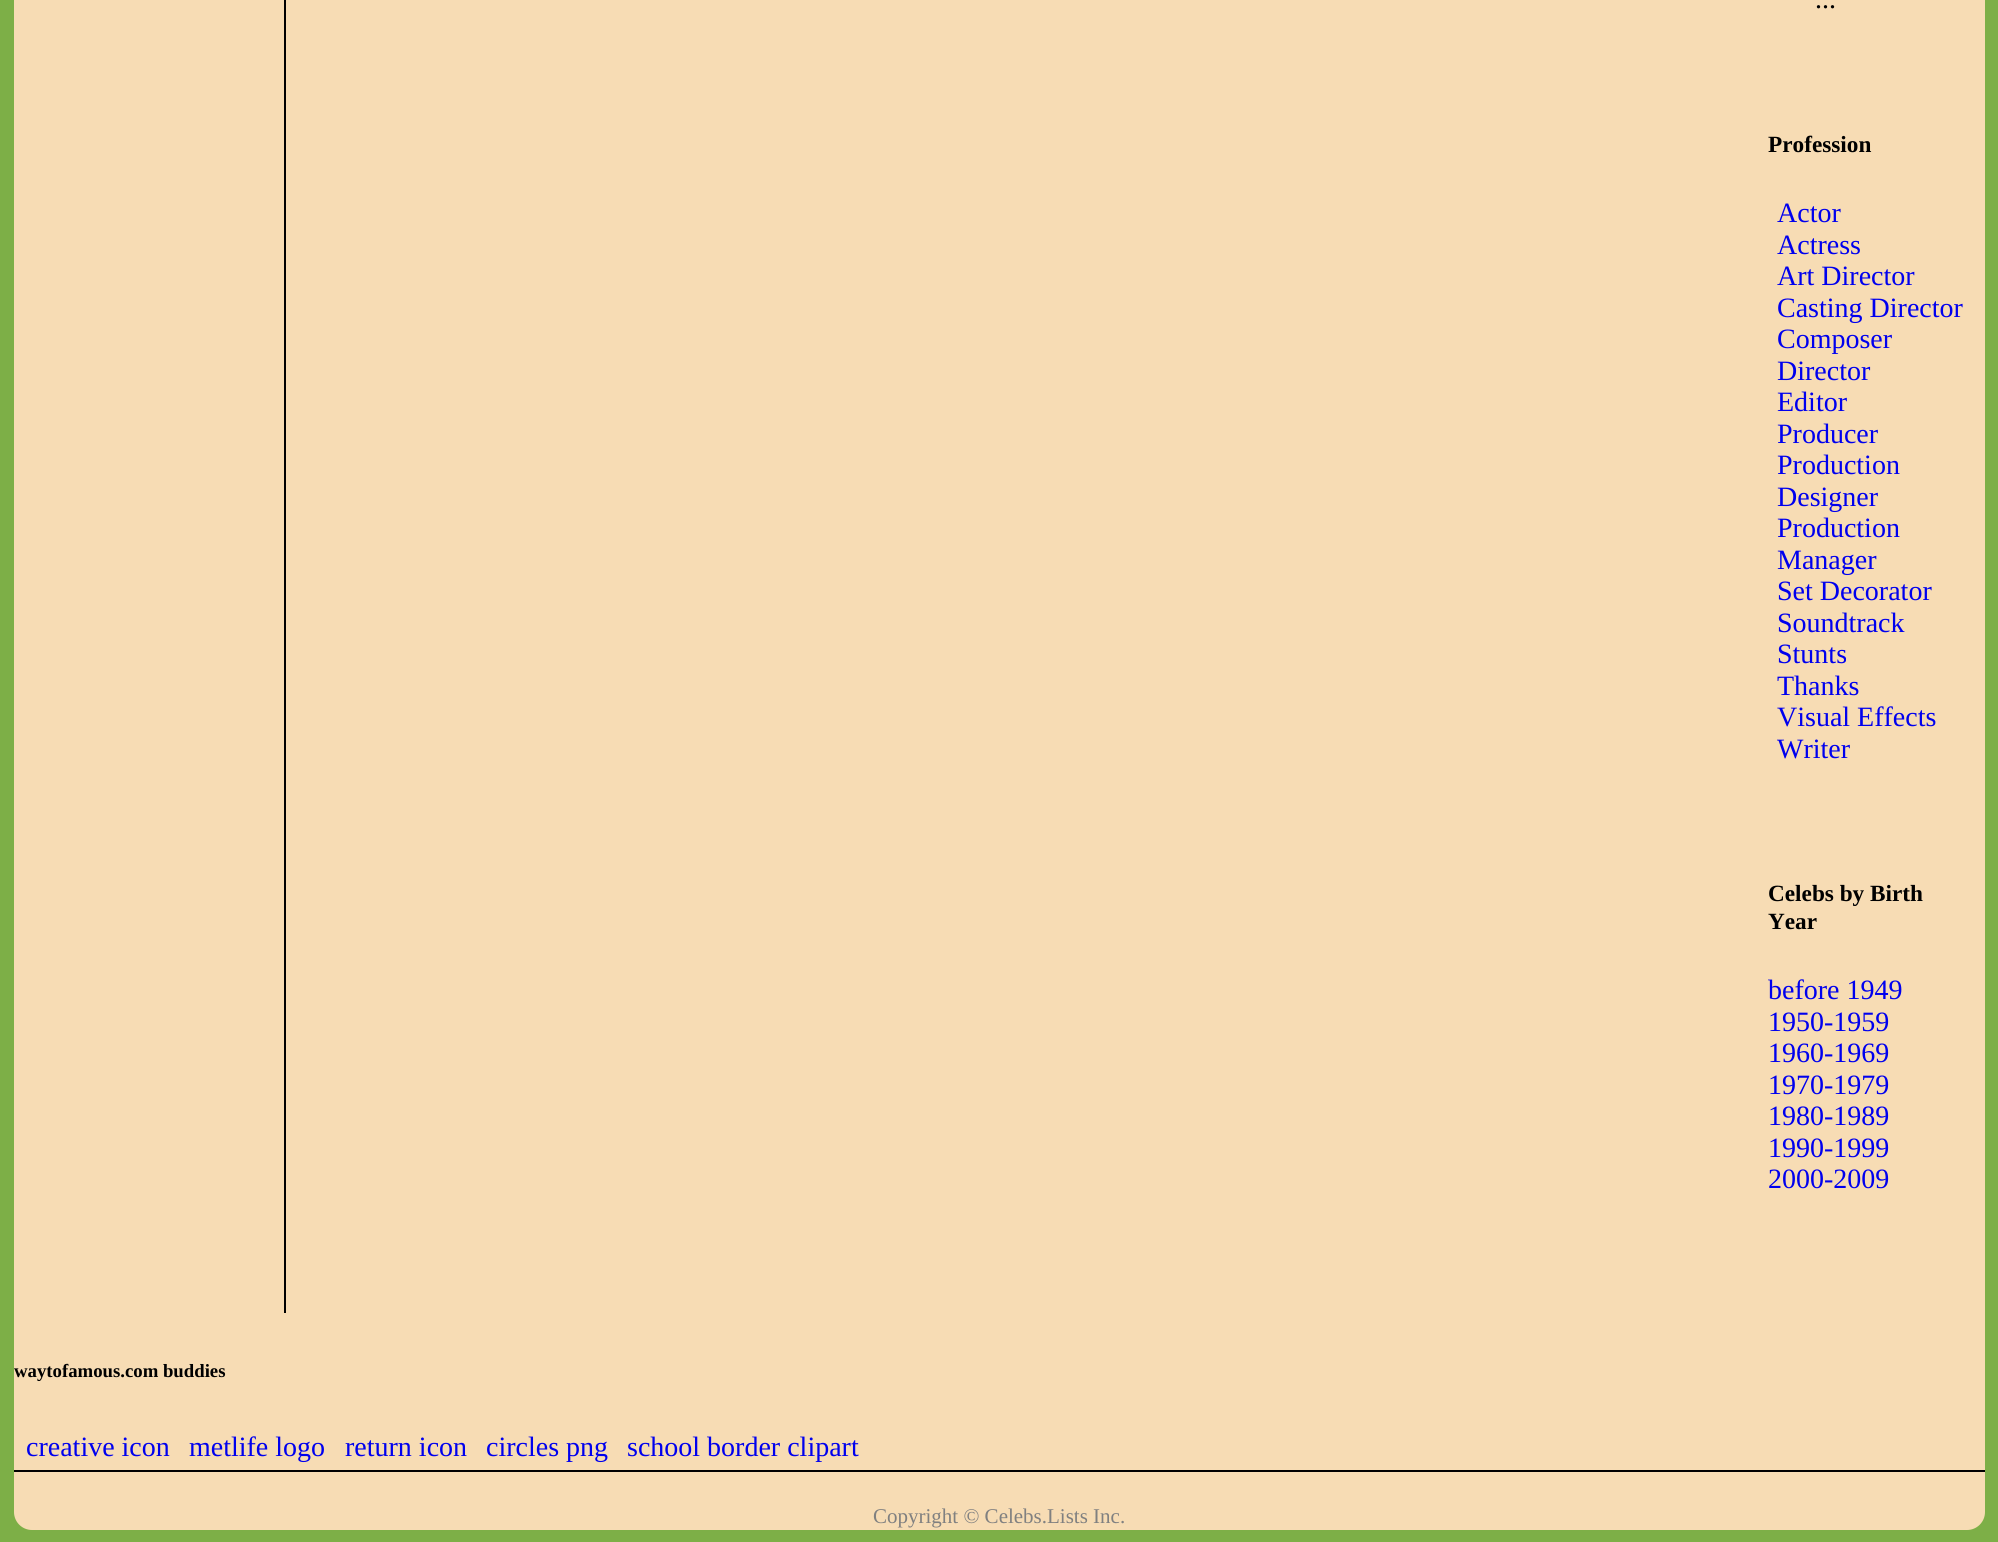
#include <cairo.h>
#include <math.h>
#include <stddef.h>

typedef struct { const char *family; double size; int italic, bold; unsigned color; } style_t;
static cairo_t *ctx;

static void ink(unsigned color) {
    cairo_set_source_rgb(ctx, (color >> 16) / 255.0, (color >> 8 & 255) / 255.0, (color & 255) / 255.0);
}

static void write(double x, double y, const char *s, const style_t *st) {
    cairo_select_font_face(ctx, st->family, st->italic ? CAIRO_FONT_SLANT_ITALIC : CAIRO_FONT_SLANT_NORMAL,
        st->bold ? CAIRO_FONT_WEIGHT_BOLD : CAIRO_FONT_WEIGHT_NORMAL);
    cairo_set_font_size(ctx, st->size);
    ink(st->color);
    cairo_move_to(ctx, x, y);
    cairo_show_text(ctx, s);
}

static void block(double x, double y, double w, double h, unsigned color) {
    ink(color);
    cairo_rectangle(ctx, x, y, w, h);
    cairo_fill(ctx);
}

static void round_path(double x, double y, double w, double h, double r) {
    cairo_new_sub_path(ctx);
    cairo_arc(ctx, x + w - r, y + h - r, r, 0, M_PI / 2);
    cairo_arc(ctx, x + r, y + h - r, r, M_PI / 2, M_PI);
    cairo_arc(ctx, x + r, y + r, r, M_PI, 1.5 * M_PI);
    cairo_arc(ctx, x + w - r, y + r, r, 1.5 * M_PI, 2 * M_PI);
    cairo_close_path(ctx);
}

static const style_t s1 = {"Liberation Serif", 28, 0, 0, 0x000000};
static const style_t s2 = {"Liberation Serif", 23.25, 0, 1, 0x000000};
static const style_t s3 = {"Liberation Serif", 28, 0, 0, 0x0000ee};
static const style_t s4 = {"Liberation Serif", 18.75, 0, 1, 0x000000};
static const style_t s5 = {"Liberation Serif", 21, 0, 0, 0x808080};

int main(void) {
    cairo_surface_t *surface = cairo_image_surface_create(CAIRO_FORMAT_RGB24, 1998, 1542);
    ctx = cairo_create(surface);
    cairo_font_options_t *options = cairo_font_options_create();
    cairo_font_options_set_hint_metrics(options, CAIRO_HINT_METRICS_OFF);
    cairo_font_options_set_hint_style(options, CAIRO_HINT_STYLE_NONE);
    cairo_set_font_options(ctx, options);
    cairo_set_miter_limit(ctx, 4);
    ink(0x7daf47);
    cairo_paint(ctx);
    ink(0xf7dcb4);
    round_path(14, -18, 1971, 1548, 18);
    cairo_fill(ctx);
    block(284, 0, 2, 1313, 0x000000);
    write(1815, 8, "...", &s1);
    write(1768, 152, "Profession", &s2);
    write(1777, 222, "Actor", &s3);
    write(1777, 254, "Actress", &s3);
    write(1777, 285, "Art Director", &s3);
    write(1777, 317, "Casting Director", &s3);
    write(1777, 348, "Composer", &s3);
    write(1777, 380, "Director", &s3);
    write(1777, 411, "Editor", &s3);
    write(1777, 443, "Producer", &s3);
    write(1777, 474, "Production", &s3);
    write(1777, 506, "Designer", &s3);
    write(1777, 537, "Production", &s3);
    write(1777, 569, "Manager", &s3);
    write(1777, 600, "Set Decorator", &s3);
    write(1777, 632, "Soundtrack", &s3);
    write(1777, 663, "Stunts", &s3);
    write(1777, 695, "Thanks", &s3);
    write(1777, 726, "Visual Effects", &s3);
    write(1777, 758, "Writer", &s3);
    write(1768, 901, "Celebs by Birth", &s2);
    write(1768, 929, "Year", &s2);
    write(1768, 999, "before 1949", &s3);
    write(1768, 1031, "1950-1959", &s3);
    write(1768, 1062, "1960-1969", &s3);
    write(1768, 1094, "1970-1979", &s3);
    write(1768, 1125, "1980-1989", &s3);
    write(1768, 1157, "1990-1999", &s3);
    write(1768, 1188, "2000-2009", &s3);
    write(14, 1377, "waytofamous.com buddies", &s4);
    write(26, 1456, "creative icon", &s3);
    write(189, 1456, "metlife logo", &s3);
    write(345, 1456, "return icon", &s3);
    write(486, 1456, "circles png", &s3);
    write(627, 1456, "school border clipart", &s3);
    block(14, 1470, 1971, 2, 0x000000);
    write(873, 1523, "Copyright © Celebs.Lists Inc.", &s5);
    cairo_surface_write_to_png(surface, "screenshot.png");
    cairo_font_options_destroy(options);
    cairo_destroy(ctx);
    cairo_surface_destroy(surface);
    return 0;
}
